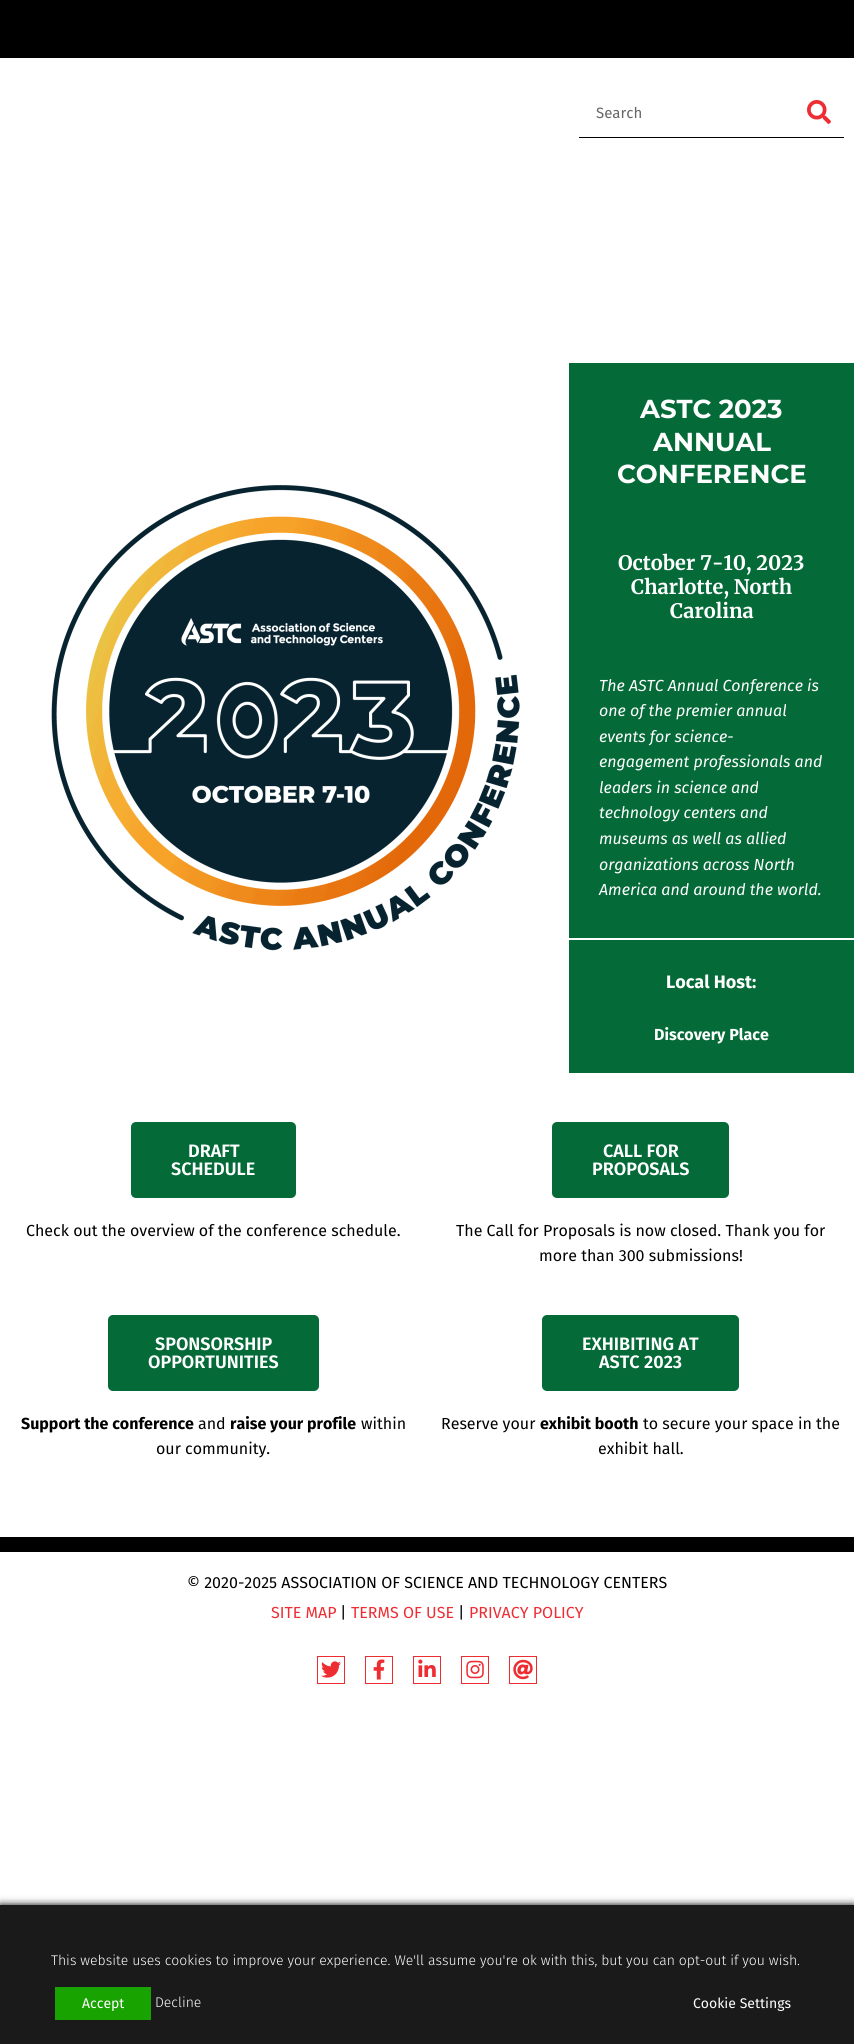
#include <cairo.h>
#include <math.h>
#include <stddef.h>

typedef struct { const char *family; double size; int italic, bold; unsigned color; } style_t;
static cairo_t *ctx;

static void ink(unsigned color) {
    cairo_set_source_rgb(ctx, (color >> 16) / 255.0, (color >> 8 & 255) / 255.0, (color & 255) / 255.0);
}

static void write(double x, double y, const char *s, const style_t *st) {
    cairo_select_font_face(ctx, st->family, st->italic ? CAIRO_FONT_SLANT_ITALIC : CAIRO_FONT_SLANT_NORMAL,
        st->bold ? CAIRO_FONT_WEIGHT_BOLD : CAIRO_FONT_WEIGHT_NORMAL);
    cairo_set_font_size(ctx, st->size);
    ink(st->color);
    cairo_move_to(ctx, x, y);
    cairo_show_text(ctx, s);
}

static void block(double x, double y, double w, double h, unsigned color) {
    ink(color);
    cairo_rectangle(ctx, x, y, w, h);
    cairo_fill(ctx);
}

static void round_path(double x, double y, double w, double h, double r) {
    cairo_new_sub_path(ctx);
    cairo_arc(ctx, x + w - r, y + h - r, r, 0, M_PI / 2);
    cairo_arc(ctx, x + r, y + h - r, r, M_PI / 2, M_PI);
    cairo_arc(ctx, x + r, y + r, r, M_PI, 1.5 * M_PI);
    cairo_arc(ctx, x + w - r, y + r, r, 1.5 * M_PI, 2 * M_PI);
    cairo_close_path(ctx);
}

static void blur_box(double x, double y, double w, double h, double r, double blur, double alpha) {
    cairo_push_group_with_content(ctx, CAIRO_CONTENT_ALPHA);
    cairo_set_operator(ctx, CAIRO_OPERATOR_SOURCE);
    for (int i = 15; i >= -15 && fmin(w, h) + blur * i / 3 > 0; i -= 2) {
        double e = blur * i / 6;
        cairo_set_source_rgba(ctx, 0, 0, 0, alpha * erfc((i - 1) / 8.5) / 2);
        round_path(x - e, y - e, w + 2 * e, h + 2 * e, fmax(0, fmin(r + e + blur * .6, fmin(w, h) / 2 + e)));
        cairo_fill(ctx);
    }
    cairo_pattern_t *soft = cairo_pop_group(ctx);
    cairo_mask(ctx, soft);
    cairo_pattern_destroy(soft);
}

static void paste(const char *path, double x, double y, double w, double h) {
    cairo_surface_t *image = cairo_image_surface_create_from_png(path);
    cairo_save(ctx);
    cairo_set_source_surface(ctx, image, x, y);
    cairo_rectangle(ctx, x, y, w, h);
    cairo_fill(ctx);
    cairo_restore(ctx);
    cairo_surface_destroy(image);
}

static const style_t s1 = {"Fira Sans", 15, 0, 0, 0x666666};
static const style_t s2 = {"Montserrat", 26, 0, 1, 0xffffff};
static const style_t s3 = {"Merriweather", 20, 0, 1, 0xffffff};
static const style_t s4 = {"Fira Sans", 16, 1, 0, 0xffffff};
static const style_t s5 = {"Fira Sans", 18, 0, 1, 0xffffff};
static const style_t s6 = {"Fira Sans", 16, 0, 1, 0xffffff};
static const style_t s7 = {"Fira Sans SemiBold", 18, 0, 0, 0xffffff};
static const style_t s8 = {"Fira Sans", 16, 0, 0, 0x000000};
static const style_t s9 = {"Fira Sans", 16, 0, 1, 0x000000};
static const style_t s10 = {"Fira Sans", 16, 0, 0, 0xee2d33};
static const style_t s11 = {"Fira Sans Light", 14, 0, 0, 0xffffff};
static const style_t s12 = {"Fira Sans", 14, 0, 0, 0xffffff};

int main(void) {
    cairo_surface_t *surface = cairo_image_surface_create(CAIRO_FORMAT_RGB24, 854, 2044);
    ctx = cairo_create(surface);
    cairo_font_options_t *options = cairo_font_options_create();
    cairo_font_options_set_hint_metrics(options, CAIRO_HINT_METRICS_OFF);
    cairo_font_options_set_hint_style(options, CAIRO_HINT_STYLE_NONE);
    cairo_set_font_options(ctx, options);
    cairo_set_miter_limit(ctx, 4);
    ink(0xffffff);
    cairo_paint(ctx);
    block(0, 0, 854, 58, 0x000000);
    block(579, 137, 265, 1, 0x000000);
    write(596, 118, "Search", &s1);
    paste("pic1.png", 807, 100, 24, 24);
    paste("pic2.png", 51, 484, 469, 467);
    block(569, 363, 285, 710, 0x046a38);
    write(640, 418, "ASTC 2023", &s2);
    write(653, 451, "ANNUAL", &s2);
    write(617, 483, "CONFERENCE", &s2);
    write(618, 570, "October 7-10, 2023", &s3);
    write(631, 594, "Charlotte, North", &s3);
    write(670, 618, "Carolina", &s3);
    write(599, 691, "The ASTC Annual Conference is", &s4);
    write(599, 716, "one of the premier annual", &s4);
    write(599, 742, "events for science-", &s4);
    write(599, 767, "engagement professionals and", &s4);
    write(599, 793, "leaders in science and", &s4);
    write(599, 818, "technology centers and", &s4);
    write(599, 844, "museums as well as allied", &s4);
    write(599, 870, "organizations across North", &s4);
    write(599, 895, "America and around the world.", &s4);
    block(569, 938, 285, 2, 0xffffff);
    write(666, 988, "Local Host:", &s5);
    write(654, 1040, "Discovery Place", &s6);
    ink(0x046a38);
    round_path(131, 1122, 165, 76, 5);
    cairo_fill(ctx);
    write(188, 1157, "DRAFT", &s7);
    write(171, 1175, "SCHEDULE", &s7);
    write(26, 1236, "Check out the overview of the conference schedule.", &s8);
    ink(0x046a38);
    round_path(552, 1122, 177, 76, 5);
    cairo_fill(ctx);
    write(603, 1157, "CALL FOR", &s7);
    write(592, 1175, "PROPOSALS", &s7);
    write(456, 1236, "The Call for Proposals is now closed. Thank you for", &s8);
    write(539, 1261, "more than 300 submissions!", &s8);
    ink(0x046a38);
    round_path(108, 1315, 211, 76, 5);
    cairo_fill(ctx);
    write(155, 1350, "SPONSORSHIP", &s7);
    write(148, 1368, "OPPORTUNITIES", &s7);
    write(21, 1429, "Support the conference", &s9);
    write(198, 1429, "and", &s8);
    write(230, 1429, "raise your profile", &s9);
    write(361, 1429, "within", &s8);
    write(156, 1454, "our community.", &s8);
    ink(0x046a38);
    round_path(542, 1315, 197, 76, 5);
    cairo_fill(ctx);
    write(582, 1350, "EXHIBITING AT", &s7);
    write(599, 1368, "ASTC 2023", &s7);
    write(441, 1429, "Reserve your", &s8);
    write(540, 1429, "exhibit booth", &s9);
    write(643, 1429, "to secure your space in the", &s8);
    write(598, 1454, "exhibit hall.", &s8);
    block(0, 1537, 854, 15, 0x000000);
    write(187, 1588, "© 2020-2025 ASSOCIATION OF SCIENCE AND TECHNOLOGY CENTERS", &s8);
    write(271, 1618, "SITE MAP", &s10);
    write(340, 1618, "|", &s8);
    write(351, 1618, "TERMS OF USE", &s10);
    write(458, 1618, "|", &s8);
    write(469, 1618, "PRIVACY POLICY", &s10);
    cairo_rectangle(ctx, 317.5, 1656.5, 27, 27);
    cairo_set_line_width(ctx, 1);
    cairo_stroke(ctx);
    paste("pic3.png", 321, 1661, 20, 17);
    cairo_rectangle(ctx, 365.5, 1656.5, 27, 27);
    cairo_stroke(ctx);
    paste("pic4.png", 373, 1659, 12, 21);
    cairo_rectangle(ctx, 413.5, 1656.5, 27, 27);
    cairo_stroke(ctx);
    paste("pic5.png", 418, 1659, 18, 18);
    cairo_rectangle(ctx, 461.5, 1656.5, 27, 27);
    cairo_stroke(ctx);
    paste("pic6.png", 466, 1660, 18, 19);
    cairo_rectangle(ctx, 509.5, 1656.5, 27, 27);
    cairo_stroke(ctx);
    paste("pic7.png", 513, 1659, 20, 21);
    ink(0x000000);
    blur_box(0, 1905, 854, 139, 0, 4, 1);
    block(0, 1905, 854, 139, 0x1a1a1a);
    write(51, 1965, "This website uses cookies to improve your experience. We'll assume you're ok with this, but you can opt-out if you wish.", &s11);
    block(55, 1987, 96, 33, 0x18a300);
    write(82, 2008, "Accept", &s12);
    write(155, 2007, "Decline", &s11);
    write(693, 2008, "Cookie Settings", &s12);
    cairo_surface_write_to_png(surface, "screenshot.png");
    cairo_font_options_destroy(options);
    cairo_destroy(ctx);
    cairo_surface_destroy(surface);
    return 0;
}
